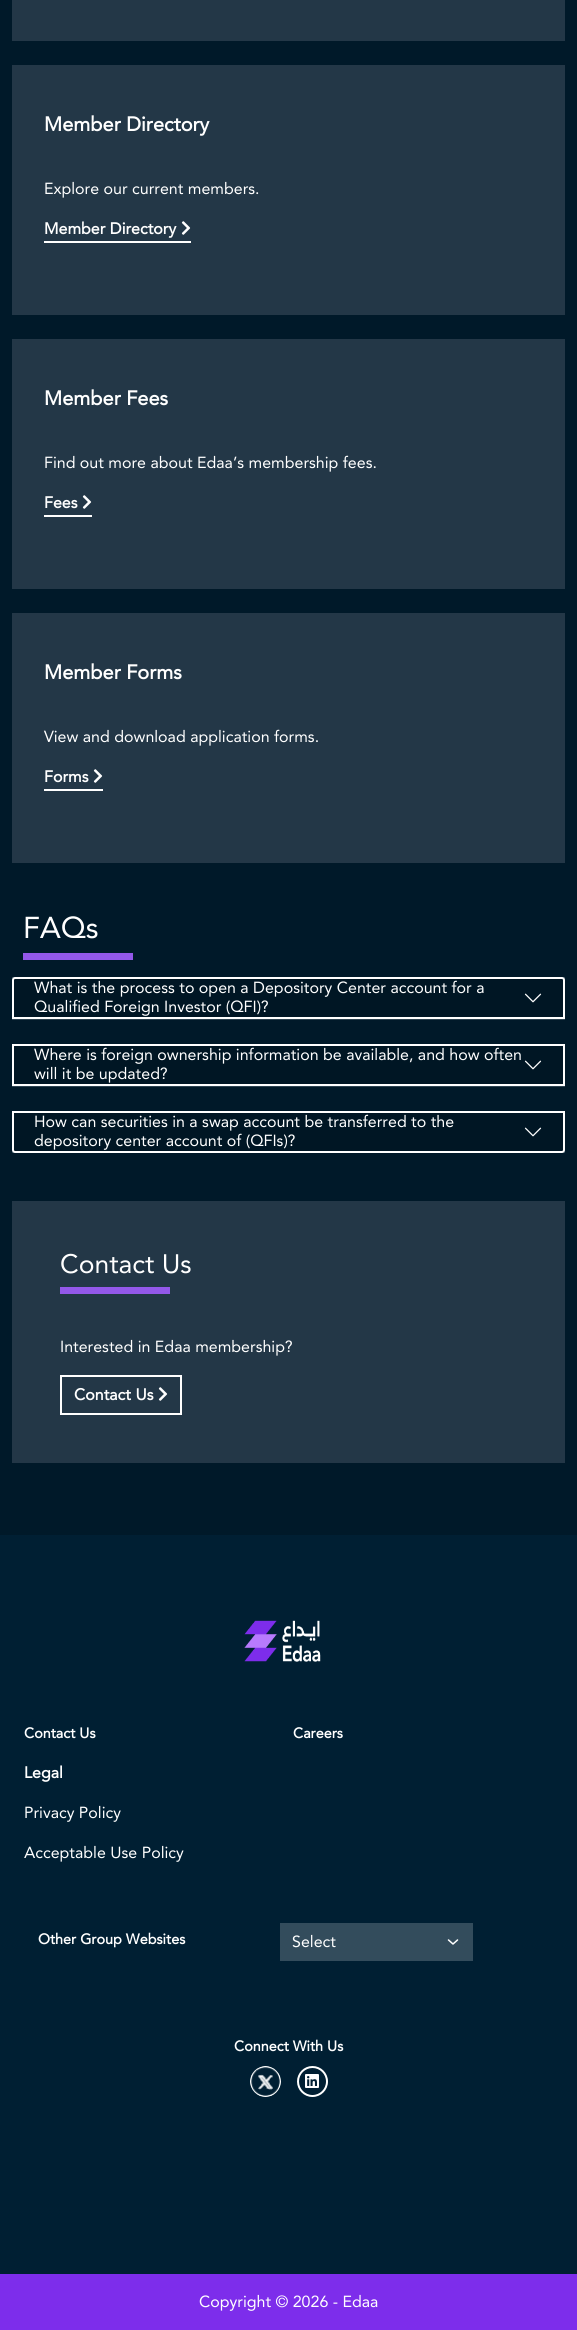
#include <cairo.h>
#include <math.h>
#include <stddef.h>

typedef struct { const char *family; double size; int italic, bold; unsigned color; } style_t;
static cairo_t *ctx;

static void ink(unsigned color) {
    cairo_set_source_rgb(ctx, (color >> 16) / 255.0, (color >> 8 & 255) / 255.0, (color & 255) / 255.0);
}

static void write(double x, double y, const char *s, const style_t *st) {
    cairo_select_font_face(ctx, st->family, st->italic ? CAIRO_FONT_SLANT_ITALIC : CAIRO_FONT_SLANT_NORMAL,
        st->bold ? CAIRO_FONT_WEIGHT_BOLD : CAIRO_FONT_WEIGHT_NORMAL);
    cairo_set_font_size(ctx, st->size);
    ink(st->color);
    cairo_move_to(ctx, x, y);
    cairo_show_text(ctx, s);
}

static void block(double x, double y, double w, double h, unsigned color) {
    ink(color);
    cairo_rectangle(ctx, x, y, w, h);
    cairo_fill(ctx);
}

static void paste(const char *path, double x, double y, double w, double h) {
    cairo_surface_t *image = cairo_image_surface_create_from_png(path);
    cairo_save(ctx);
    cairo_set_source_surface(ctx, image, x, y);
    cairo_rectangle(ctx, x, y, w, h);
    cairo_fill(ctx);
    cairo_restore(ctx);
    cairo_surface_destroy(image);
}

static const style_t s1 = {"Avenir", 20, 0, 1, 0xffffff};
static const style_t s2 = {"Avenir", 16, 0, 0, 0xffffff};
static const style_t s3 = {"Avenir", 16, 0, 1, 0xffffff};
static const style_t s4 = {"Avenir", 30, 0, 0, 0xffffff};
static const style_t s5 = {"Avenir", 26.5, 0, 0, 0xffffff};
static const style_t s6 = {"Avenir", 14.4, 0, 1, 0xffffff};

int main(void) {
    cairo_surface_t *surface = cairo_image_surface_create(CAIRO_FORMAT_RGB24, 577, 2330);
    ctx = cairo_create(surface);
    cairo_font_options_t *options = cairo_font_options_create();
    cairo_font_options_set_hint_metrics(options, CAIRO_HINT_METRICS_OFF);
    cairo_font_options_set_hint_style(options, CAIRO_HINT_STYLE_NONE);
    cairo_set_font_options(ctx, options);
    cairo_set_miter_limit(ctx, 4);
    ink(0x001929);
    cairo_paint(ctx);
    block(12, 0, 553, 41, 0x233747);
    block(12, 65, 553, 250, 0x233747);
    write(44, 131, "Member Directory", &s1);
    write(44, 194, "Explore our current members.", &s2);
    write(44, 234, "Member Directory", &s3);
    paste("pic1.png", 181, 221, 10, 14);
    block(44, 241, 147, 2, 0xffffff);
    block(12, 339, 553, 250, 0x233747);
    write(44, 405, "Member Fees", &s1);
    write(44, 468, "Find out more about Edaa’s membership fees.", &s2);
    write(44, 508, "Fees", &s3);
    paste("pic1.png", 82, 495, 10, 14);
    block(44, 515, 48, 2, 0xffffff);
    block(12, 613, 553, 250, 0x233747);
    write(44, 679, "Member Forms", &s1);
    write(44, 742, "View and download application forms.", &s2);
    write(44, 782, "Forms", &s3);
    paste("pic1.png", 93, 769, 10, 14);
    block(44, 789, 59, 2, 0xffffff);
    write(23, 938, "FAQs", &s4);
    block(23, 953, 110, 7, 0x9358e9);
    block(12, 977, 553, 3, 0x334c5c);
    block(12, 1019, 553, 1, 0x2d4351);
    ink(0x001624);
    cairo_new_path(ctx);
    cairo_move_to(ctx, 15, 978);
    cairo_line_to(ctx, 562, 978);
    cairo_curve_to(ctx, 563, 978, 564, 979, 564, 980);
    cairo_line_to(ctx, 564, 1018);
    cairo_line_to(ctx, 13, 1018);
    cairo_line_to(ctx, 13, 980);
    cairo_curve_to(ctx, 13, 979, 14, 978, 15, 978);
    cairo_close_path(ctx);
    cairo_fill_preserve(ctx);
    ink(0xffffff);
    cairo_stroke(ctx);
    write(34, 993, "What is the process to open a Depository Center account for a", &s2);
    paste("pic2.png", 524, 993, 18, 10);
    write(34, 1012, "Qualified Foreign Investor (QFI)?", &s2);
    block(12, 1086, 553, 1, 0x2d4351);
    ink(0x001624);
    cairo_rectangle(ctx, 13, 1045, 551, 40);
    cairo_fill_preserve(ctx);
    ink(0xffffff);
    cairo_stroke(ctx);
    write(34, 1060, "Where is foreign ownership information be available, and how often", &s2);
    paste("pic2.png", 524, 1060, 18, 10);
    write(34, 1079, "will it be updated?", &s2);
    block(12, 1150, 553, 3, 0x334c5c);
    ink(0x001624);
    cairo_new_path(ctx);
    cairo_move_to(ctx, 13, 1112);
    cairo_line_to(ctx, 564, 1112);
    cairo_line_to(ctx, 564, 1150);
    cairo_curve_to(ctx, 564, 1151, 563, 1152, 562, 1152);
    cairo_line_to(ctx, 15, 1152);
    cairo_curve_to(ctx, 14, 1152, 13, 1151, 13, 1150);
    cairo_close_path(ctx);
    cairo_fill_preserve(ctx);
    ink(0xffffff);
    cairo_stroke(ctx);
    write(34, 1127, "How can securities in a swap account be transferred to the", &s2);
    paste("pic2.png", 524, 1127, 18, 10);
    write(34, 1146, "depository center account of (QFIs)?", &s2);
    block(12, 1201, 553, 262, 0x233747);
    write(60, 1273, "Contact Us", &s5);
    block(60, 1287, 110, 7, 0x9358e9);
    write(60, 1352, "Interested in Edaa membership?", &s2);
    cairo_rectangle(ctx, 61, 1376, 120, 38);
    cairo_stroke(ctx);
    write(74, 1400, "Contact Us", &s3);
    paste("pic1.png", 158, 1387, 10, 14);
    block(0, 1535, 577, 739, 0x001f33);
    paste("pic3.png", 244, 1620, 77, 42);
    write(24, 1738, "Contact Us", &s6);
    write(293, 1738, "Careers", &s6);
    write(24, 1778, "Legal", &s3);
    write(24, 1818, "Privacy Policy", &s2);
    write(24, 1858, "Acceptable Use Policy", &s2);
    write(38, 1944, "Other Group Websites", &s6);
    block(280, 1923, 193, 38, 0x334c5c);
    cairo_new_path(ctx);
    cairo_move_to(ctx, 448.5, 1940);
    cairo_line_to(ctx, 453, 1944);
    cairo_line_to(ctx, 457.5, 1940);
    ink(0xffffff);
    cairo_set_line_width(ctx, 1.5);
    cairo_set_line_cap(ctx, CAIRO_LINE_CAP_ROUND);
    cairo_set_line_join(ctx, CAIRO_LINE_JOIN_ROUND);
    cairo_stroke(ctx);
    write(292, 1947, "Select", &s2);
    write(234, 2051, "Connect With Us", &s6);
    paste("pic4.png", 250, 2066, 31, 31);
    cairo_arc(ctx, 312.5, 2081.5, 14.5, 0, 2 * M_PI);
    cairo_set_line_width(ctx, 2);
    cairo_set_line_cap(ctx, CAIRO_LINE_CAP_BUTT);
    cairo_set_line_join(ctx, CAIRO_LINE_JOIN_MITER);
    cairo_stroke(ctx);
    paste("pic5.png", 305, 2074, 14, 14);
    block(0, 2274, 577, 56, 0x7d2deb);
    write(199, 2307, "Copyright © 2026 - Edaa", &s2);
    cairo_surface_write_to_png(surface, "screenshot.png");
    cairo_font_options_destroy(options);
    cairo_destroy(ctx);
    cairo_surface_destroy(surface);
    return 0;
}
